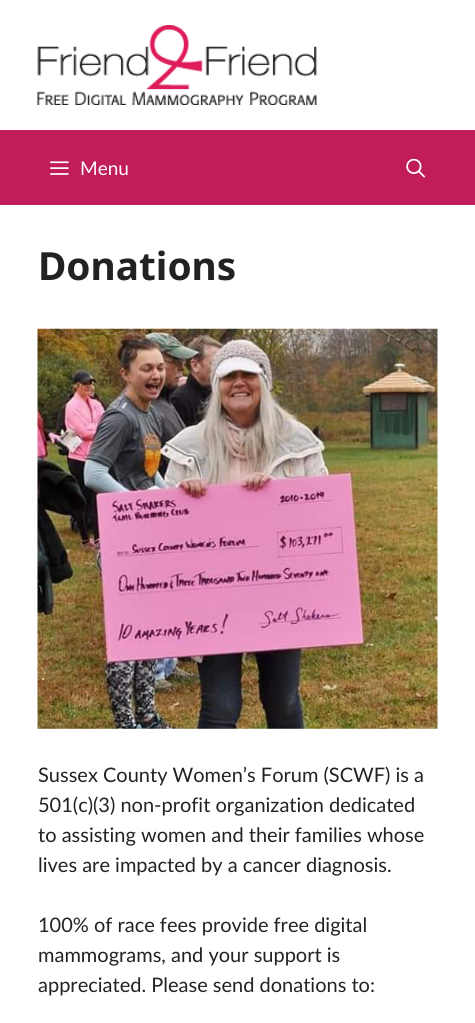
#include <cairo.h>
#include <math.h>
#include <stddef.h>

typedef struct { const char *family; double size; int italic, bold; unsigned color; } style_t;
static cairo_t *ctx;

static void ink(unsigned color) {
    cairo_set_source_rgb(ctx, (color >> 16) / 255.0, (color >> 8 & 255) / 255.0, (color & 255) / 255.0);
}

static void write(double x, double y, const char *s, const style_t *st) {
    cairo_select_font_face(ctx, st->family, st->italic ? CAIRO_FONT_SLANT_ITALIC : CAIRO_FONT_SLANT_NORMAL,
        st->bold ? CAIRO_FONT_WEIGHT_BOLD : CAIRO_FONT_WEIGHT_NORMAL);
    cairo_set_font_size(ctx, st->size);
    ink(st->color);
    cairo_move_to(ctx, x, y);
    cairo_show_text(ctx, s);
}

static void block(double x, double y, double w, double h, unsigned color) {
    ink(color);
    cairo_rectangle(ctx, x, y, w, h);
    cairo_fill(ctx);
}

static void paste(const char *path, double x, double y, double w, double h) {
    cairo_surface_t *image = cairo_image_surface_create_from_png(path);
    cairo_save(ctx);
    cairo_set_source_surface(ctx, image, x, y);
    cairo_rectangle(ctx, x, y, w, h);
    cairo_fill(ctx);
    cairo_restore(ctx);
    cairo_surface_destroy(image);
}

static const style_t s1 = {"Lato", 19, 0, 0, 0xffffff};
static const style_t s2 = {"Noto Sans", 38.75, 0, 1, 0x222222};
static const style_t s3 = {"Lato", 20, 0, 0, 0x222222};

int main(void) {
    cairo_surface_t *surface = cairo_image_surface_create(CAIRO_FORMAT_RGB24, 475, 1023);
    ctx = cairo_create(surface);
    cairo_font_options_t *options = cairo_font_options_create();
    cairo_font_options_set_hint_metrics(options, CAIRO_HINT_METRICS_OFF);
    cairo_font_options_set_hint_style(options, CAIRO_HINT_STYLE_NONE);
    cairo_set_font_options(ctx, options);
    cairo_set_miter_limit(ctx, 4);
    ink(0xffffff);
    cairo_paint(ctx);
    paste("pic1.png", 37, 25, 280, 80);
    block(0, 130, 475, 75, 0xc21d5b);
    paste("pic2.png", 50, 161, 19, 14);
    write(80, 175, "Menu", &s1);
    paste("pic3.png", 406, 159, 19, 19);
    write(38, 280, "Donations", &s2);
    paste("pic4.png", 37, 328, 401, 401);
    write(38, 782, "Sussex County Women’s Forum (SCWF) is a", &s3);
    write(38, 812, "501(c)(3) non-profit organization dedicated", &s3);
    write(38, 842, "to assisting women and their families whose", &s3);
    write(38, 872, "lives are impacted by a cancer diagnosis.", &s3);
    write(38, 932, "100% of race fees provide free digital", &s3);
    write(38, 962, "mammograms, and your support is", &s3);
    write(38, 992, "appreciated. Please send donations to:", &s3);
    cairo_surface_write_to_png(surface, "screenshot.png");
    cairo_font_options_destroy(options);
    cairo_destroy(ctx);
    cairo_surface_destroy(surface);
    return 0;
}
